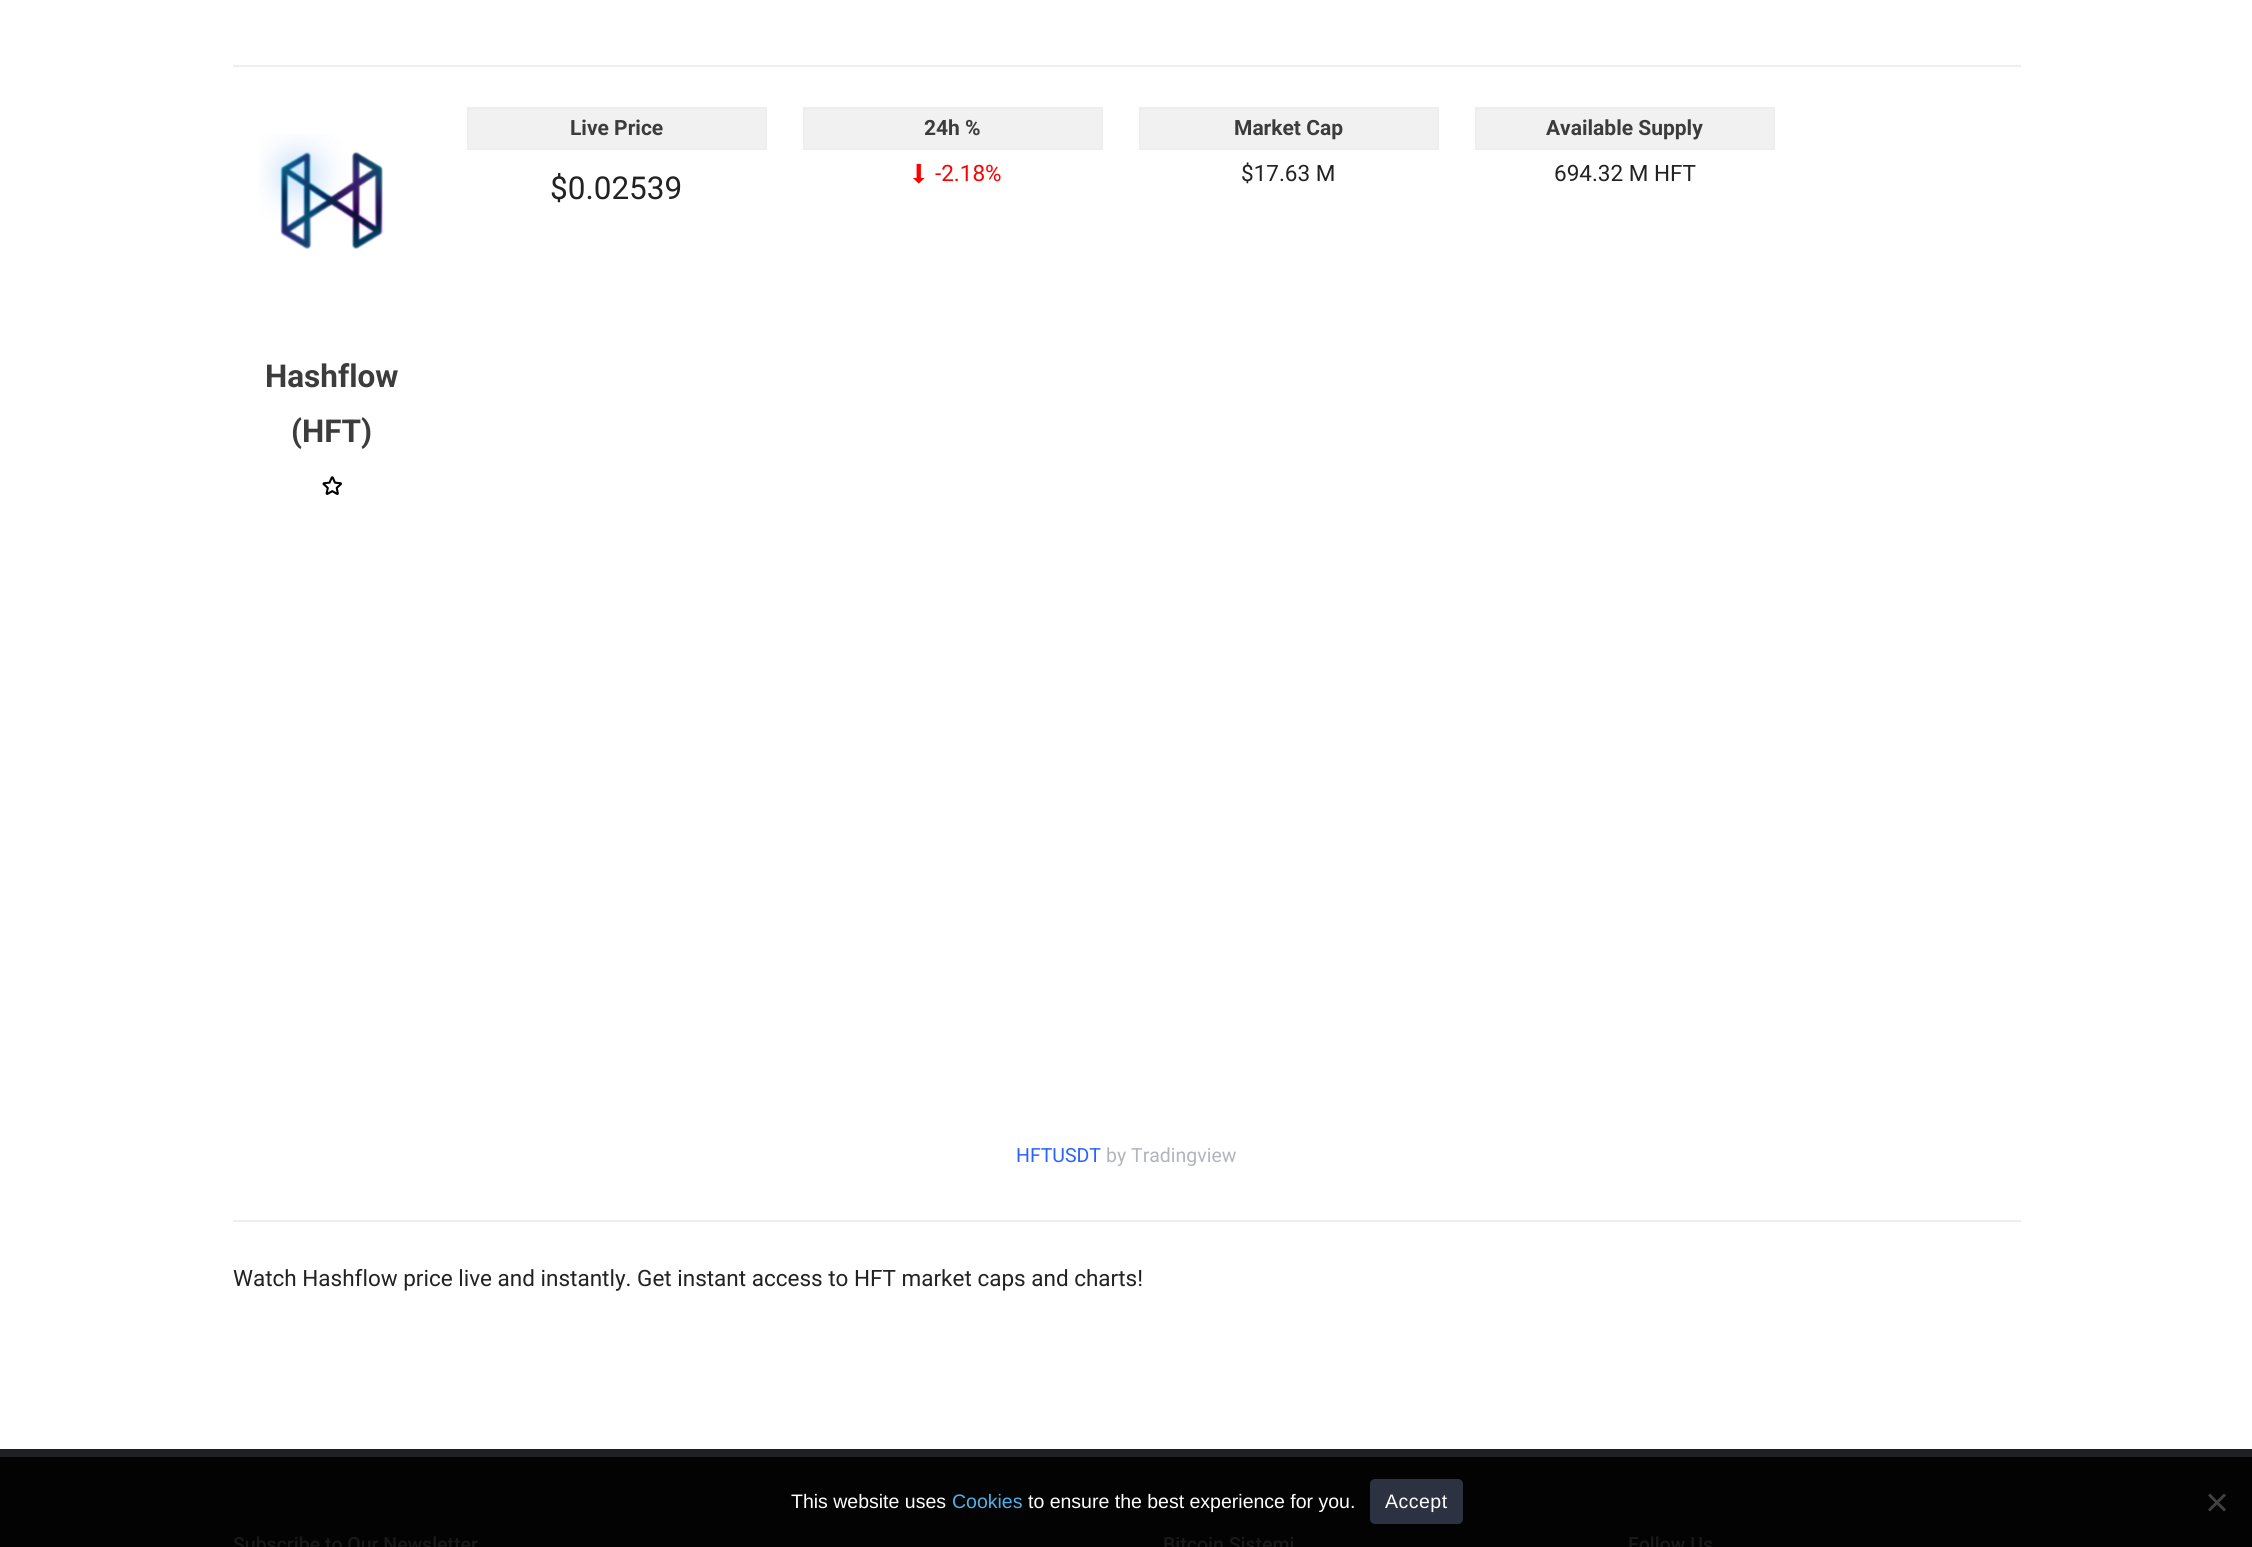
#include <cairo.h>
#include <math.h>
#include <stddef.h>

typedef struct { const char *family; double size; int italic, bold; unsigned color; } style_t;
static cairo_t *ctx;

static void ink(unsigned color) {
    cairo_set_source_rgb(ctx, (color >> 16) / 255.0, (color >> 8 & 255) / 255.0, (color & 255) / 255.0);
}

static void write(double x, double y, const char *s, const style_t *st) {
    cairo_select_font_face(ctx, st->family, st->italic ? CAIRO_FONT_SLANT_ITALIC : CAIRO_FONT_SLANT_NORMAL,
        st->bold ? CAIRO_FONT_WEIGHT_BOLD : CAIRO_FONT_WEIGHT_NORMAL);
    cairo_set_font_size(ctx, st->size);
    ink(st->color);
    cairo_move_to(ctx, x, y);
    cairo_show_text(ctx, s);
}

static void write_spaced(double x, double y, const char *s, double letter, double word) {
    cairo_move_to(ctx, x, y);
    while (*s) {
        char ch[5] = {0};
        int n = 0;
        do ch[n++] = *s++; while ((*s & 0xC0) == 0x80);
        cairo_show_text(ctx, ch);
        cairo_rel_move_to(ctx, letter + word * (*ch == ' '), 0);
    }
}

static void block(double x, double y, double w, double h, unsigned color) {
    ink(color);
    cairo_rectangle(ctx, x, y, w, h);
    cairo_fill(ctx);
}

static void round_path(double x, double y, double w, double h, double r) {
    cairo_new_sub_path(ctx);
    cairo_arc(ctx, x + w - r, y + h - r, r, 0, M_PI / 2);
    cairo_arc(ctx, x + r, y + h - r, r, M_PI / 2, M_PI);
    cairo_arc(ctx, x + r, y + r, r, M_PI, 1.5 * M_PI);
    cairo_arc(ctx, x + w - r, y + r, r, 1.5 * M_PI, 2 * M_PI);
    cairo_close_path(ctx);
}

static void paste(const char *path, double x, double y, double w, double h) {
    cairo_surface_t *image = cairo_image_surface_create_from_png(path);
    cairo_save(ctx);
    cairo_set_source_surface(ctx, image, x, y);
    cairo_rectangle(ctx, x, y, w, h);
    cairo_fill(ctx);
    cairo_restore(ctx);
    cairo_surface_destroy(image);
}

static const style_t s1 = {"Roboto", 21, 0, 1, 0x3c3c3c};
static const style_t s2 = {"Roboto", 31.5, 0, 0, 0x222222};
static const style_t s3 = {"Roboto", 22.5, 0, 0, 0xff0000};
static const style_t s4 = {"Roboto", 22.5, 0, 0, 0x222222};
static const style_t s5 = {"Roboto", 31.5, 0, 1, 0x3c3c3c};
static const style_t s6 = {"Roboto", 19.5, 0, 0, 0x2962ff};
static const style_t s7 = {"Roboto", 19.5, 0, 0, 0xb2b5be};
static const style_t s8 = {"Roboto Medium", 19.5, 0, 0, 0x191919};
static const style_t s9 = {"Liberation Sans", 19.5, 0, 0, 0xffffff};
static const style_t s10 = {"Liberation Sans", 19.5, 0, 0, 0x4db2ec};

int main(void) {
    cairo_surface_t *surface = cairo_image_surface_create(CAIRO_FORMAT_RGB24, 2252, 1547);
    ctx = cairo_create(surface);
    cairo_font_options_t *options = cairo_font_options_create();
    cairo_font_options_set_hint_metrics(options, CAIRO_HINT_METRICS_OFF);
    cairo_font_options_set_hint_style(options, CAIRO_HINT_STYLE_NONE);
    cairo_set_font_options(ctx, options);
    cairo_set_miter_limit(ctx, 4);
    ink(0xffffff);
    cairo_paint(ctx);
    block(233, 65, 1788, 2, 0xeeeeee);
    ink(0xf1f1f1);
    cairo_rectangle(ctx, 468, 108, 298, 41);
    cairo_fill_preserve(ctx);
    ink(0xeeeeee);
    cairo_stroke(ctx);
    write(570, 135, "Live Price", &s1);
    write(550, 199, "$0.02539", &s2);
    ink(0xf1f1f1);
    cairo_rectangle(ctx, 804, 108, 298, 41);
    cairo_fill_preserve(ctx);
    ink(0xeeeeee);
    cairo_stroke(ctx);
    write(924, 135, "24h %", &s1);
    paste("pic1.png", 913, 163, 12, 21);
    write(935, 181, "-2.18%", &s3);
    ink(0xf1f1f1);
    cairo_rectangle(ctx, 1140, 108, 298, 41);
    cairo_fill_preserve(ctx);
    ink(0xeeeeee);
    cairo_stroke(ctx);
    write(1234, 135, "Market Cap", &s1);
    write(1241, 181, "$17.63 M", &s4);
    ink(0xf1f1f1);
    cairo_rectangle(ctx, 1476, 108, 298, 41);
    cairo_fill_preserve(ctx);
    ink(0xeeeeee);
    cairo_stroke(ctx);
    write(1546, 135, "Available Supply", &s1);
    write(1554, 181, "694.32 M HFT", &s4);
    paste("pic2.png", 259, 134, 124, 116);
    write(265, 387, "Hashflow", &s5);
    write(291, 442, "(HFT)", &s5);
    paste("pic3.png", 322, 476, 20, 19);
    write(1016, 1162, "HFTUSDT", &s6);
    write(1106, 1162, "by Tradingview", &s7);
    block(233, 1220, 1788, 2, 0xeeeeee);
    write(233, 1286, "Watch Hashflow price live and instantly. Get instant access to HFT market caps and charts!", &s4);
    block(0, 1449, 2252, 8, 0x1f2024);
    block(0, 1457, 2252, 90, 0x030304);
    write(233, 1551, "Subscribe to Our Newsletter", &s8);
    write(1163, 1551, "Bitcoin Sistemi", &s8);
    write(1628, 1551, "Follow Us", &s8);
    write(791, 1508, "This website uses", &s9);
    write(952, 1508, "Cookies", &s10);
    write(1028, 1508, "to ensure the best experience for you.", &s9);
    ink(0x2c3242);
    round_path(1370, 1479, 93, 45, 5);
    cairo_fill(ctx);
    ink(0xffffff);
    write_spaced(1385, 1508, "Accept", 0.5, 0);
    ink(0x424242);
    cairo_new_path(ctx);
    cairo_move_to(ctx, 2224, 1493.5);
    cairo_line_to(ctx, 2226, 1495.5);
    cairo_line_to(ctx, 2210, 1511.5);
    cairo_line_to(ctx, 2208, 1509.5);
    cairo_close_path(ctx);
    cairo_fill(ctx);
    cairo_new_path(ctx);
    cairo_move_to(ctx, 2208, 1495.5);
    cairo_line_to(ctx, 2210, 1493.5);
    cairo_line_to(ctx, 2226, 1509.5);
    cairo_line_to(ctx, 2224, 1511.5);
    cairo_close_path(ctx);
    cairo_fill(ctx);
    cairo_surface_write_to_png(surface, "screenshot.png");
    cairo_font_options_destroy(options);
    cairo_destroy(ctx);
    cairo_surface_destroy(surface);
    return 0;
}
